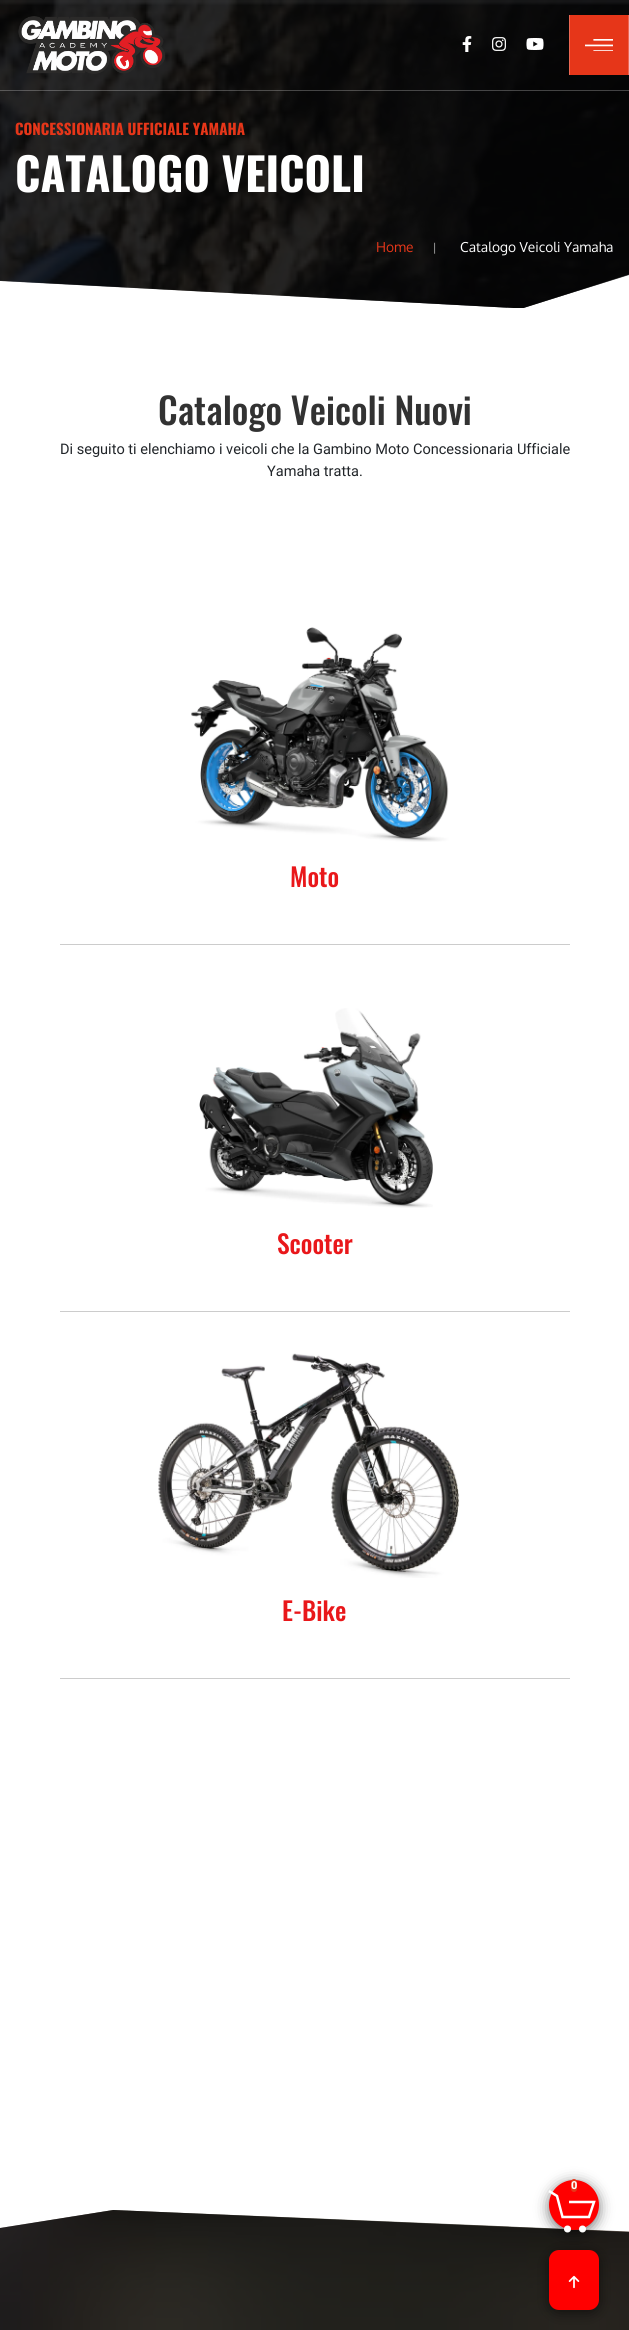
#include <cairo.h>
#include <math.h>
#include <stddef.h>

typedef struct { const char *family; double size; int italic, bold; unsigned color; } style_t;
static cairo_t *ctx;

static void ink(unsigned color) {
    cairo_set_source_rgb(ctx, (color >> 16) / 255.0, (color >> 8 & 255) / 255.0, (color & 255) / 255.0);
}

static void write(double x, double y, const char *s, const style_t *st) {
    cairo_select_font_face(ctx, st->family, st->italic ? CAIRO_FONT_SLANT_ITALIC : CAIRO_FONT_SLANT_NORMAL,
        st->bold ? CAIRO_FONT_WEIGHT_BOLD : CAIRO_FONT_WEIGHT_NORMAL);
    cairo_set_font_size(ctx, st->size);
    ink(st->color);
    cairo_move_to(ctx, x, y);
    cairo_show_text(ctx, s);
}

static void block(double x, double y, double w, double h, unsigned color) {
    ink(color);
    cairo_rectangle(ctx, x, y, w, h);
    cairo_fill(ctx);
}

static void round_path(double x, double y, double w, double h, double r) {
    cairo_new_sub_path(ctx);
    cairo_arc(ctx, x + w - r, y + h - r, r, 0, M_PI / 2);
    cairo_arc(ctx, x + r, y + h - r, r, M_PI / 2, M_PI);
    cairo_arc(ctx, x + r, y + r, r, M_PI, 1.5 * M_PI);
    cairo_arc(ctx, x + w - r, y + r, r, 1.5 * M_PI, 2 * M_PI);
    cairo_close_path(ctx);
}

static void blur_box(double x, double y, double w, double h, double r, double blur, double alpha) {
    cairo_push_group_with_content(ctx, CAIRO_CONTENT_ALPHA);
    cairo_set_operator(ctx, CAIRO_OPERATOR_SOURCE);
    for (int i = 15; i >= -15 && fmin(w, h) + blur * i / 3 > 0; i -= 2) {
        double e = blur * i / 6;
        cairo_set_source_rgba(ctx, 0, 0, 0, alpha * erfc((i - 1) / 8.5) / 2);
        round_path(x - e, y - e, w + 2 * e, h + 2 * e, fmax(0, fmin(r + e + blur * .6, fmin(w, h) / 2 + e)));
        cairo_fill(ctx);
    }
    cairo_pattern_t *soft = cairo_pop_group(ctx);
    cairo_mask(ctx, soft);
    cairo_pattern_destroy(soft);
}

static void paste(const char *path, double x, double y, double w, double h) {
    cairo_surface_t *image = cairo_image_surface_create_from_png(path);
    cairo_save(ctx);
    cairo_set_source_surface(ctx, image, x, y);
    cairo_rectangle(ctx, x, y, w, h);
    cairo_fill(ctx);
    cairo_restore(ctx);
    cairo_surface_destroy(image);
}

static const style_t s1 = {"Oswald", 15.1, 0, 1, 0xe63619};
static const style_t s2 = {"Oswald", 45.25, 0, 1, 0xffffff};
static const style_t s3 = {"Oxygen", 13.75, 0, 0, 0xe63619};
static const style_t s4 = {"Roboto", 13, 0, 0, 0x999999};
static const style_t s5 = {"Oxygen", 13.75, 0, 0, 0xffffff};
static const style_t s6 = {"Oswald Medium", 36.4, 0, 0, 0x323232};
static const style_t s7 = {"Roboto", 14.55, 0, 0, 0x212529};
static const style_t s8 = {"Oswald Medium", 25.5, 0, 0, 0xe9171a};
static const style_t s9 = {"Roboto ExtraBold", 11, 0, 0, 0xffffff};

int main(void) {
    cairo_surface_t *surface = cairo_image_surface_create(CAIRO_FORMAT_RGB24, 629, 2330);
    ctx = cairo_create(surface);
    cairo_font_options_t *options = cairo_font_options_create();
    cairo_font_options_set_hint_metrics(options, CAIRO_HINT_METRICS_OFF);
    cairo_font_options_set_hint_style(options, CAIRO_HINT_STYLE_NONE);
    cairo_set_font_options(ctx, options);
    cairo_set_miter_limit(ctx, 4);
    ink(0xffffff);
    cairo_paint(ctx);
    paste("pic6.png", 0, 0, 629, 308);
    cairo_set_source_rgba(ctx, 0, 0, 0, 0.7);
    cairo_new_path(ctx);
    cairo_move_to(ctx, 0, 0);
    cairo_line_to(ctx, 0, 281);
    cairo_line_to(ctx, 514, 308);
    cairo_line_to(ctx, 523, 308);
    cairo_line_to(ctx, 629, 275);
    cairo_line_to(ctx, 629, 0);
    cairo_close_path(ctx);
    cairo_fill(ctx);
    cairo_set_source_rgba(ctx, 1, 1, 1, 0.25);
    cairo_rectangle(ctx, 0, 90, 629, 1);
    cairo_fill(ctx);
    paste("pic1.png", 18, 16, 147, 58);
    paste("pic2.png", 462, 36, 10, 16);
    paste("pic3.png", 492, 37, 14, 14);
    paste("pic4.png", 526, 38, 18, 12);
    block(570, 15, 58, 60, 0xe63619);
    block(628, 15, 1, 60, 0xec6853);
    block(569, 15, 1, 60, 0xec6853);
    paste("pic5.png", 585, 39, 28, 12);
    write(15, 135, "CONCESSIONARIA UFFICIALE YAMAHA", &s1);
    write(15, 192, "CATALOGO VEICOLI", &s2);
    write(376, 252, "Home", &s3);
    write(433, 252, "|", &s4);
    write(460, 252, "Catalogo Veicoli Yamaha", &s5);
    write(158, 425, "Catalogo Veicoli Nuovi", &s6);
    write(60, 454, "Di seguito ti elenchiamo i veicoli che la Gambino Moto Concessionaria Ufficiale", &s7);
    write(267, 476, "Yamaha tratta.", &s7);
    block(60, 944, 510, 1, 0xcccccc);
    paste("pic7.png", 191, 627, 258, 215);
    write(290, 887, "Moto", &s8);
    block(60, 1311, 510, 1, 0xcccccc);
    paste("pic8.png", 199, 1008, 234, 200);
    write(277, 1254, "Scooter", &s8);
    block(60, 1678, 510, 1, 0xcccccc);
    paste("pic9.png", 158, 1353, 302, 225);
    write(282, 1621, "E-Bike", &s8);
    paste("pic10.png", 0, 2210, 629, 120);
    cairo_set_source_rgba(ctx, 0, 0, 0, 0.75);
    cairo_new_path(ctx);
    cairo_move_to(ctx, 113, 2210);
    cairo_line_to(ctx, 0, 2228);
    cairo_line_to(ctx, 0, 2330);
    cairo_line_to(ctx, 629, 2330);
    cairo_line_to(ctx, 629, 2232);
    cairo_close_path(ctx);
    cairo_fill(ctx);
    ink(0x000000);
    blur_box(551, 2185, 46, 46, 23, 7.5, 0.68);
    ink(0xff0000);
    cairo_arc(ctx, 574, 2205, 25, 0, 2 * M_PI);
    cairo_fill(ctx);
    ink(0xe63619);
    round_path(571, 2179, 6, 13, 3);
    cairo_fill(ctx);
    write(571, 2189, "0", &s9);
    cairo_new_path(ctx);
    cairo_arc(ctx, 567.5, 2229, 3.5, 0, 2 * M_PI);
    cairo_fill(ctx);
    cairo_arc(ctx, 582.5, 2229, 3.5, 0, 2 * M_PI);
    cairo_fill(ctx);
    cairo_new_path(ctx);
    cairo_move_to(ctx, 549, 2191);
    cairo_line_to(ctx, 557, 2196);
    cairo_line_to(ctx, 562.5, 2217);
    cairo_line_to(ctx, 589, 2217);
    cairo_line_to(ctx, 594, 2202);
    cairo_line_to(ctx, 569, 2202);
    cairo_set_line_width(ctx, 2.5);
    cairo_stroke(ctx);
    ink(0x000000);
    blur_box(551, 2255, 46, 56, 8, 7.5, 0.68);
    ink(0xff0000);
    round_path(549, 2250, 50, 60, 10);
    cairo_fill(ctx);
    paste("pic11.png", 568, 2275, 12, 14);
    cairo_surface_write_to_png(surface, "screenshot.png");
    cairo_font_options_destroy(options);
    cairo_destroy(ctx);
    cairo_surface_destroy(surface);
    return 0;
}
